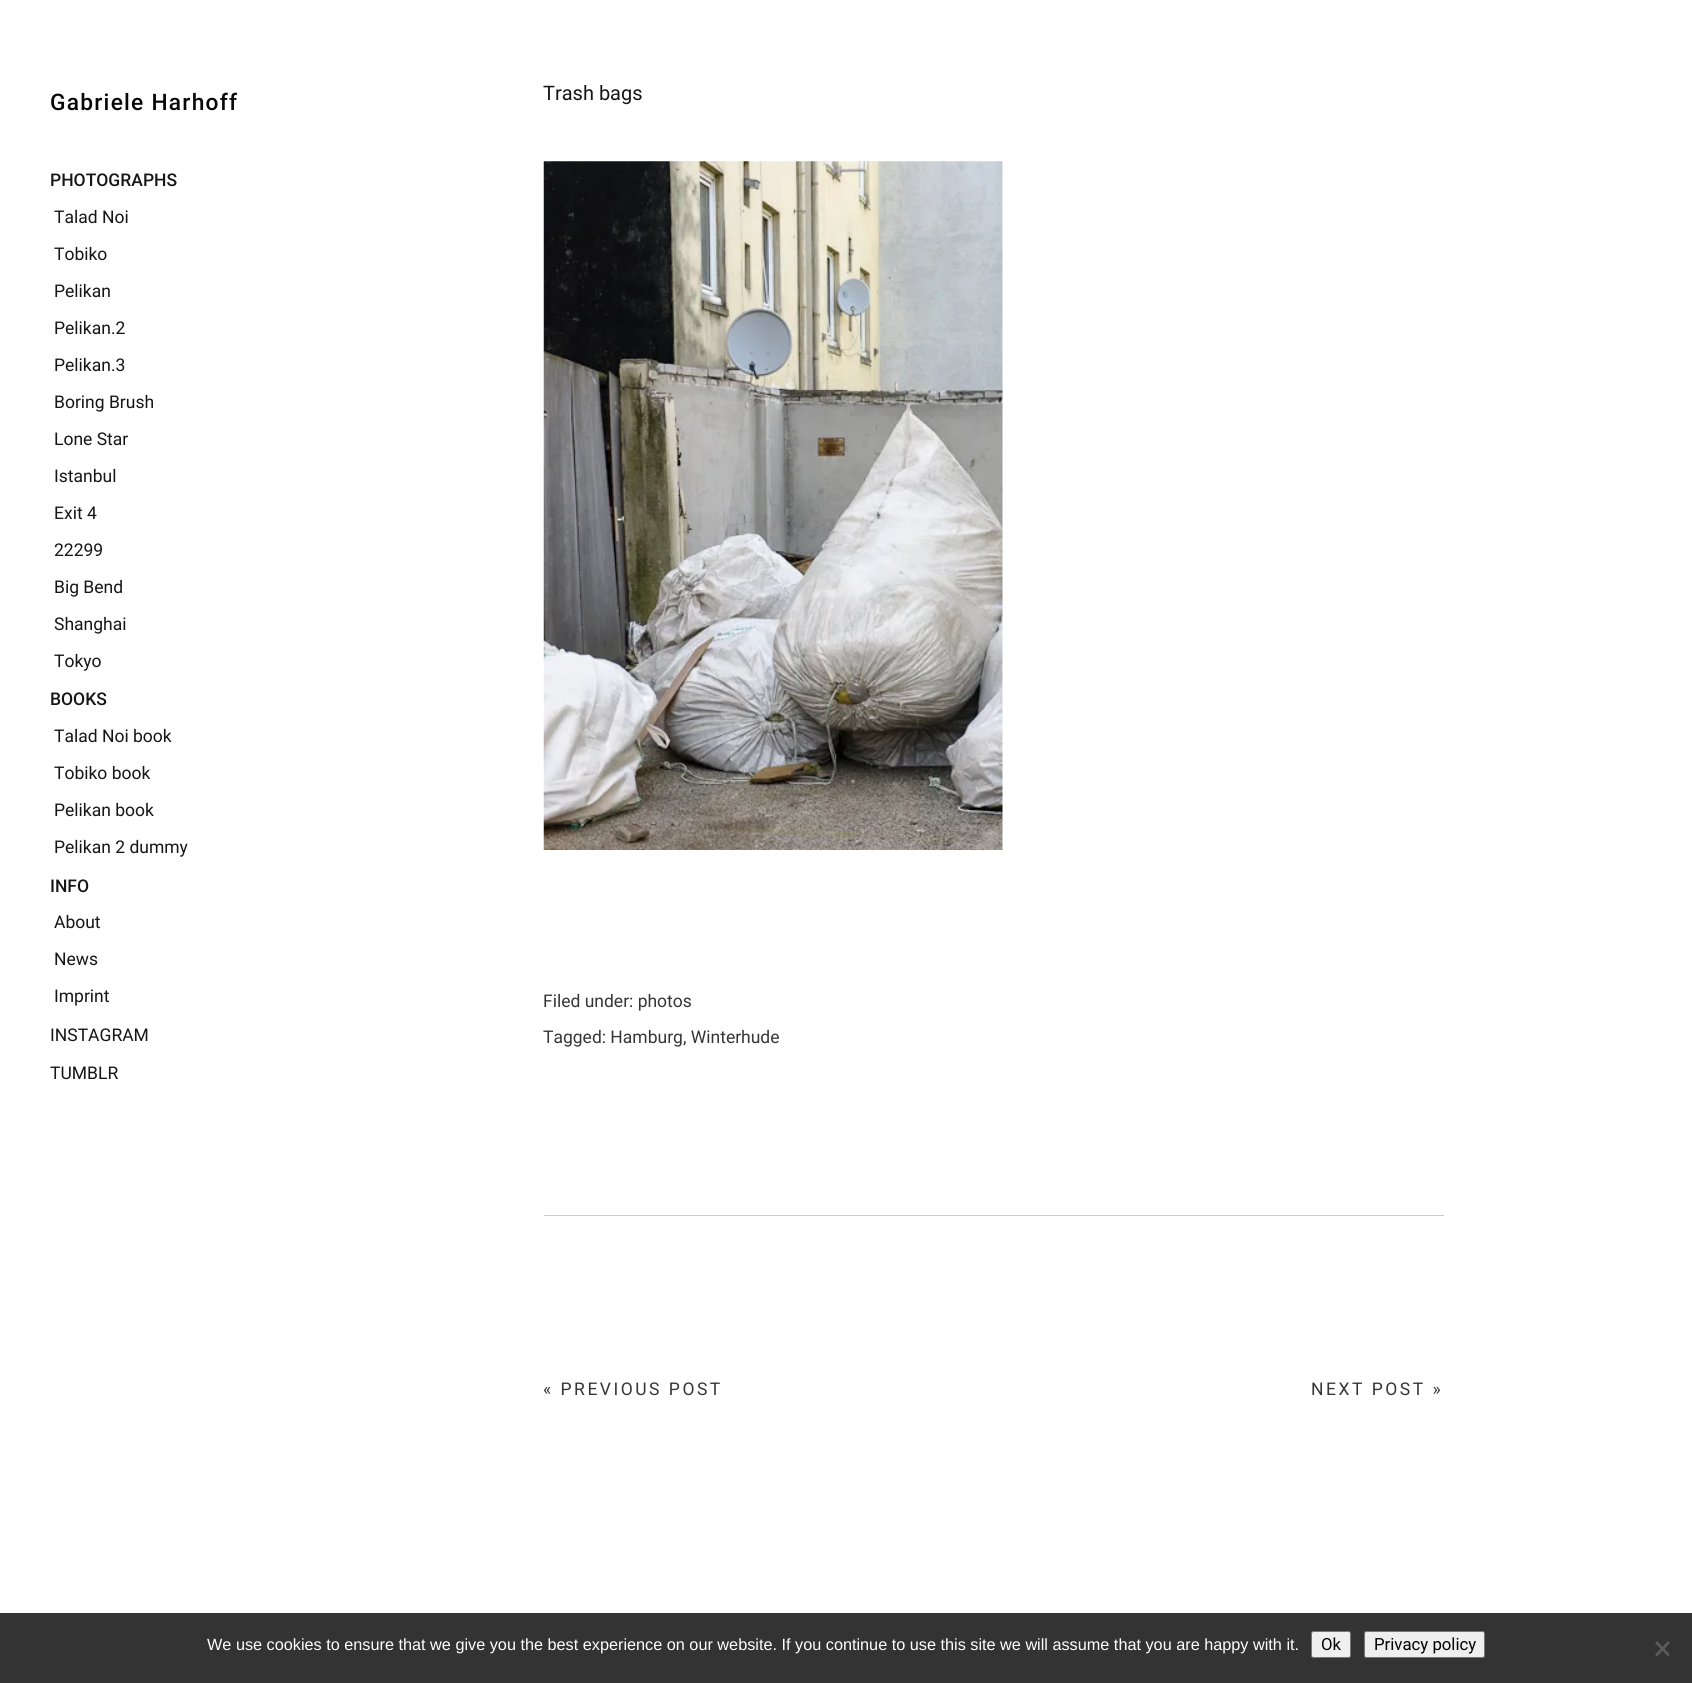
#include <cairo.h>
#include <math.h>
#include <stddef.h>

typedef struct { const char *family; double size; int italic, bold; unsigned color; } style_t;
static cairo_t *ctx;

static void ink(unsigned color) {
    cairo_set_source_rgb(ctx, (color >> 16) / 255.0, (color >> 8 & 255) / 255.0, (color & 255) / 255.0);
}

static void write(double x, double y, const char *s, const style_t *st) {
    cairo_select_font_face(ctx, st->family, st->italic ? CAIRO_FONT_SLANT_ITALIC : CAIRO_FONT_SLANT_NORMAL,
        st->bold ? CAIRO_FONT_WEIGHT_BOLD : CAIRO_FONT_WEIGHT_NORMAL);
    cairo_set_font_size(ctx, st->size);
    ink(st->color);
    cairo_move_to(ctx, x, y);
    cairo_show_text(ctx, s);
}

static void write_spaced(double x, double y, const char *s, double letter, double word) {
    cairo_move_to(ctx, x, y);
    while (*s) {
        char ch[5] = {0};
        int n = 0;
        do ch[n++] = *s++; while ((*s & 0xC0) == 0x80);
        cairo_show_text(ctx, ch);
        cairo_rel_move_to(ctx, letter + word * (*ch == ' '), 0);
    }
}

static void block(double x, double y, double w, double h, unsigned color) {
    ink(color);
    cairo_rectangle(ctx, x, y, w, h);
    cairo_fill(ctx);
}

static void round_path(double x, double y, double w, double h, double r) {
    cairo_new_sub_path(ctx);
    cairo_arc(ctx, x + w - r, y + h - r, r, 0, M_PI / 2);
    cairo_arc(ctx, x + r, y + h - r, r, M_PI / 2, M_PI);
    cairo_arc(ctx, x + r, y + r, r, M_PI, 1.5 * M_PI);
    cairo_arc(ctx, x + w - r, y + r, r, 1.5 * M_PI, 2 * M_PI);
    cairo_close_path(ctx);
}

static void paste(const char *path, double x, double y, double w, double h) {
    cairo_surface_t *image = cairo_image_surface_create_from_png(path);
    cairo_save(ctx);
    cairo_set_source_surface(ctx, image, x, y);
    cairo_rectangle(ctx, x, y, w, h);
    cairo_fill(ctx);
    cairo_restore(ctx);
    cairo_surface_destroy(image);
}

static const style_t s1 = {"Roboto Medium", 17.5, 0, 0, 0x161616};
static const style_t s2 = {"Roboto", 17.5, 0, 0, 0x161616};
static const style_t s3 = {"Roboto", 20, 0, 0, 0x161616};
static const style_t s4 = {"Roboto", 17.5, 0, 0, 0x363636};
static const style_t s5 = {"Liberation Sans", 16.25, 0, 0, 0xffffff};
static const style_t s6 = {"Roboto", 16.75, 0, 0, 0x000000};

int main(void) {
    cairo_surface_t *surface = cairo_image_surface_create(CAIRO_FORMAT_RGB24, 1692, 1683);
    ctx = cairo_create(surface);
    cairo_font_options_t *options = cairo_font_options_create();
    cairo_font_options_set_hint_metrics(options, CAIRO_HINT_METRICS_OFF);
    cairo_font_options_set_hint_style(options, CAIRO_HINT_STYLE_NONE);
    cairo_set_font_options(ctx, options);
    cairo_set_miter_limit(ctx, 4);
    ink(0xffffff);
    cairo_paint(ctx);
    cairo_select_font_face(ctx, "Roboto Medium", CAIRO_FONT_SLANT_NORMAL, CAIRO_FONT_WEIGHT_NORMAL);
    cairo_set_font_size(ctx, 22.75);
    ink(0x070707);
    write_spaced(50, 110, "Gabriele Harhoff", 1.25, 0);
    write(50, 186, "PHOTOGRAPHS", &s1);
    write(54, 223, "Talad Noi", &s2);
    write(54, 260, "Tobiko", &s2);
    write(54, 297, "Pelikan", &s2);
    write(54, 334, "Pelikan.2", &s2);
    write(54, 371, "Pelikan.3", &s2);
    write(54, 408, "Boring Brush", &s2);
    write(54, 445, "Lone Star", &s2);
    write(54, 482, "Istanbul", &s2);
    write(54, 519, "Exit 4", &s2);
    write(54, 556, "22299", &s2);
    write(54, 593, "Big Bend", &s2);
    write(54, 630, "Shanghai", &s2);
    write(54, 667, "Tokyo", &s2);
    write(50, 705, "BOOKS", &s1);
    write(54, 742, "Talad Noi book", &s2);
    write(54, 779, "Tobiko book", &s2);
    write(54, 816, "Pelikan book", &s2);
    write(54, 853, "Pelikan 2 dummy", &s2);
    write(50, 892, "INFO", &s1);
    write(54, 928, "About", &s2);
    write(54, 965, "News", &s2);
    write(54, 1002, "Imprint", &s2);
    write(50, 1041, "INSTAGRAM", &s2);
    write(50, 1079, "TUMBLR", &s2);
    write(543, 100, "Trash bags", &s3);
    paste("pic1.png", 543, 161, 460, 689);
    write(543, 1007, "Filed under: photos", &s4);
    write(543, 1043, "Tagged: Hamburg, Winterhude", &s4);
    block(544, 1215, 900, 1, 0xcccccc);
    ink(0x363636);
    write_spaced(543, 1395, "« PREVIOUS POST", 2.5, 0);
    write_spaced(1311, 1395, "NEXT POST »", 2.5, 0);
    block(0, 1613, 1692, 70, 0x333333);
    write(207, 1650, "We use cookies to ensure that we give you the best experience on our website. If you continue to use this site we will assume that you are happy with it.", &s5);
    ink(0xefefef);
    round_path(1311.5, 1631.5, 39, 26, 2);
    cairo_fill_preserve(ctx);
    ink(0x767676);
    cairo_set_line_width(ctx, 1);
    cairo_stroke(ctx);
    write(1321, 1650, "Ok", &s6);
    ink(0xefefef);
    round_path(1364.5, 1631.5, 120, 26, 2);
    cairo_fill_preserve(ctx);
    ink(0x767676);
    cairo_stroke(ctx);
    write(1374, 1650, "Privacy policy", &s6);
    ink(0x5a5a5a);
    cairo_new_path(ctx);
    cairo_move_to(ctx, 1668, 1641);
    cairo_line_to(ctx, 1670, 1643);
    cairo_line_to(ctx, 1657, 1656.5);
    cairo_line_to(ctx, 1655, 1654.5);
    cairo_close_path(ctx);
    cairo_fill(ctx);
    cairo_new_path(ctx);
    cairo_move_to(ctx, 1655, 1643);
    cairo_line_to(ctx, 1657, 1641);
    cairo_line_to(ctx, 1670, 1654.5);
    cairo_line_to(ctx, 1668, 1656.5);
    cairo_close_path(ctx);
    cairo_fill(ctx);
    cairo_surface_write_to_png(surface, "screenshot.png");
    cairo_font_options_destroy(options);
    cairo_destroy(ctx);
    cairo_surface_destroy(surface);
    return 0;
}
